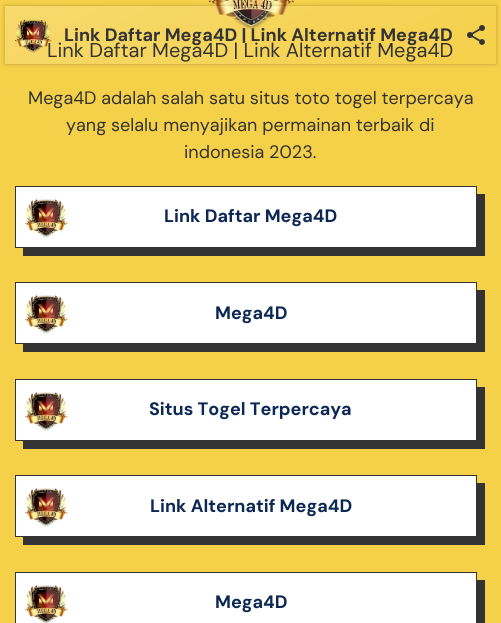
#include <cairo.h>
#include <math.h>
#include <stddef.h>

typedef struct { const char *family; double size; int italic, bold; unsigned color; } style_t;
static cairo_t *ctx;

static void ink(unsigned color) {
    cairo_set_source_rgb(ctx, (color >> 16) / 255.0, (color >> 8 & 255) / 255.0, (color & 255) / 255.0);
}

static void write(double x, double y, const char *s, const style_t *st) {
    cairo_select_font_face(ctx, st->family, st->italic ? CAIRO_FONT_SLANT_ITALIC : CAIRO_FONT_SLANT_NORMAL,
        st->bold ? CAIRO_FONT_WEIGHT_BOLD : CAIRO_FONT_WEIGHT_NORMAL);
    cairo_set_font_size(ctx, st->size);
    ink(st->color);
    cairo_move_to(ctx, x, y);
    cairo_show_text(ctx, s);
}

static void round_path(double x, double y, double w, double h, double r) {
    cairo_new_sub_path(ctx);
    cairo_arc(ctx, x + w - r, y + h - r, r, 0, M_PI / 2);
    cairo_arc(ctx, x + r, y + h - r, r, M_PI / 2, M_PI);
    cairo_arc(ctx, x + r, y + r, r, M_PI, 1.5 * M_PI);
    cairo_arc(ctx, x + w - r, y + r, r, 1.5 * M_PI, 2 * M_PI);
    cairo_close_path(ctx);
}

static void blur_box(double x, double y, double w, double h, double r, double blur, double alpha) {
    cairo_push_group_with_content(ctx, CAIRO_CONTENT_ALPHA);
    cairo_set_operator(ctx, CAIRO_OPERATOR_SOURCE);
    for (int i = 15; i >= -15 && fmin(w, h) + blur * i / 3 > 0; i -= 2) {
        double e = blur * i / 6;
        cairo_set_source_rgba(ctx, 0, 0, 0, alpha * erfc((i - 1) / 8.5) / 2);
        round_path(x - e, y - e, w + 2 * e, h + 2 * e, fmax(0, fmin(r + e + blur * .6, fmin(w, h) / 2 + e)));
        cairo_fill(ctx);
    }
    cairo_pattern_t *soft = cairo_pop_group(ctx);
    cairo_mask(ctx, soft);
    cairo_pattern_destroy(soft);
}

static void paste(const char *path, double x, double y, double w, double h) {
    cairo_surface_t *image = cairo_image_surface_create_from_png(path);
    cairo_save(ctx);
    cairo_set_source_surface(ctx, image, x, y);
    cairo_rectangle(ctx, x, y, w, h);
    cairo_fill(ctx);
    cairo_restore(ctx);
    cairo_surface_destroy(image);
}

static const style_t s1 = {"DM Sans", 20, 0, 0, 0x333333};
static const style_t s2 = {"DM Sans", 18, 0, 1, 0x333333};
static const style_t s3 = {"DM Sans", 18, 0, 0, 0x333333};
static const style_t s4 = {"DM Sans", 18, 0, 1, 0x0d2854};

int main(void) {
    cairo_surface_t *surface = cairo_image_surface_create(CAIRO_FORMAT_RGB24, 501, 623);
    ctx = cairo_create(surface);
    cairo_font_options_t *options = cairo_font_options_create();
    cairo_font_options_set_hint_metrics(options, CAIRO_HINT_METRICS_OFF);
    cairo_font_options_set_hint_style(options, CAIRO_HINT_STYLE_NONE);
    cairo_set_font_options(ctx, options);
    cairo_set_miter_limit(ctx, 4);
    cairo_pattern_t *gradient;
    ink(0xf5d049);
    cairo_paint(ctx);
    paste("pic3.png", 209, 0, 85, 30);
    cairo_save(ctx);
    cairo_set_fill_rule(ctx, CAIRO_FILL_RULE_EVEN_ODD);
    cairo_new_path(ctx);
    cairo_move_to(ctx, 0, 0);
    cairo_line_to(ctx, 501, 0);
    cairo_line_to(ctx, 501, 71);
    cairo_line_to(ctx, 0, 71);
    cairo_close_path(ctx);
    cairo_move_to(ctx, 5, 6);
    cairo_line_to(ctx, 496, 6);
    cairo_line_to(ctx, 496, 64);
    cairo_line_to(ctx, 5, 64);
    cairo_close_path(ctx);
    cairo_clip(ctx);
    ink(0x000000);
    blur_box(5, 6, 491, 58, 0, 2, 0.25);
    cairo_restore(ctx);
    gradient = cairo_pattern_create_linear(188, -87, 313, 157);
    cairo_pattern_add_color_stop_rgba(gradient, 0, 1, 1, 1, 0.2);
    cairo_pattern_add_color_stop_rgba(gradient, 1, 1, 1, 1, 0);
    cairo_set_source(ctx, gradient);
    cairo_pattern_destroy(gradient);
    cairo_rectangle(ctx, 5, 6, 491, 58);
    cairo_fill(ctx);
    write(47, 57, "Link Daftar Mega4D | Link Alternatif Mega4D", &s1);
    paste("pic1.png", 15, 19, 37, 34);
    write(64, 41, "Link Daftar Mega4D | Link Alternatif Mega4D", &s2);
    paste("pic2.png", 467, 25, 18, 20);
    write(28, 104, "Mega4D adalah salah satu situs toto togel terpercaya", &s3);
    write(66, 131, "yang selalu menyajikan permainan terbaik di", &s3);
    write(184, 158, "indonesia 2023.", &s3);
    cairo_new_path(ctx);
    cairo_move_to(ctx, 23, 248);
    cairo_line_to(ctx, 23, 256);
    cairo_line_to(ctx, 485, 256);
    cairo_line_to(ctx, 485, 194);
    cairo_line_to(ctx, 477, 194);
    cairo_line_to(ctx, 477, 248);
    cairo_close_path(ctx);
    cairo_fill(ctx);
    ink(0xffffff);
    cairo_rectangle(ctx, 15.5, 186.5, 461, 61);
    cairo_fill_preserve(ctx);
    ink(0x333333);
    cairo_set_line_width(ctx, 1);
    cairo_stroke(ctx);
    paste("pic4.png", 25, 199, 43, 39);
    write(164, 222, "Link Daftar Mega4D", &s4);
    ink(0x333333);
    cairo_new_path(ctx);
    cairo_move_to(ctx, 23, 344);
    cairo_line_to(ctx, 23, 352);
    cairo_line_to(ctx, 485, 352);
    cairo_line_to(ctx, 485, 290);
    cairo_line_to(ctx, 477, 290);
    cairo_line_to(ctx, 477, 344);
    cairo_close_path(ctx);
    cairo_fill(ctx);
    ink(0xffffff);
    cairo_rectangle(ctx, 15.5, 282.5, 461, 61);
    cairo_fill_preserve(ctx);
    ink(0x333333);
    cairo_stroke(ctx);
    paste("pic5.png", 25, 295, 43, 39);
    write(215, 319, "Mega4D", &s4);
    ink(0x333333);
    cairo_new_path(ctx);
    cairo_move_to(ctx, 23, 441);
    cairo_line_to(ctx, 23, 449);
    cairo_line_to(ctx, 485, 449);
    cairo_line_to(ctx, 485, 387);
    cairo_line_to(ctx, 477, 387);
    cairo_line_to(ctx, 477, 441);
    cairo_close_path(ctx);
    cairo_fill(ctx);
    ink(0xffffff);
    cairo_rectangle(ctx, 15.5, 379.5, 461, 61);
    cairo_fill_preserve(ctx);
    ink(0x333333);
    cairo_stroke(ctx);
    paste("pic6.png", 25, 392, 43, 39);
    write(149, 415, "Situs Togel Terpercaya", &s4);
    ink(0x333333);
    cairo_new_path(ctx);
    cairo_move_to(ctx, 23, 537);
    cairo_line_to(ctx, 23, 545);
    cairo_line_to(ctx, 485, 545);
    cairo_line_to(ctx, 485, 483);
    cairo_line_to(ctx, 477, 483);
    cairo_line_to(ctx, 477, 537);
    cairo_close_path(ctx);
    cairo_fill(ctx);
    ink(0xffffff);
    cairo_rectangle(ctx, 15.5, 475.5, 461, 61);
    cairo_fill_preserve(ctx);
    ink(0x333333);
    cairo_stroke(ctx);
    paste("pic4.png", 25, 488, 43, 39);
    write(150, 512, "Link Alternatif Mega4D", &s4);
    ink(0x333333);
    cairo_new_path(ctx);
    cairo_move_to(ctx, 23, 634);
    cairo_line_to(ctx, 23, 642);
    cairo_line_to(ctx, 485, 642);
    cairo_line_to(ctx, 485, 580);
    cairo_line_to(ctx, 477, 580);
    cairo_line_to(ctx, 477, 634);
    cairo_close_path(ctx);
    cairo_fill(ctx);
    ink(0xffffff);
    cairo_rectangle(ctx, 15.5, 572.5, 461, 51);
    cairo_fill_preserve(ctx);
    ink(0x333333);
    cairo_stroke(ctx);
    paste("pic7.png", 25, 585, 43, 38);
    write(215, 608, "Mega4D", &s4);
    cairo_surface_write_to_png(surface, "screenshot.png");
    cairo_font_options_destroy(options);
    cairo_destroy(ctx);
    cairo_surface_destroy(surface);
    return 0;
}
